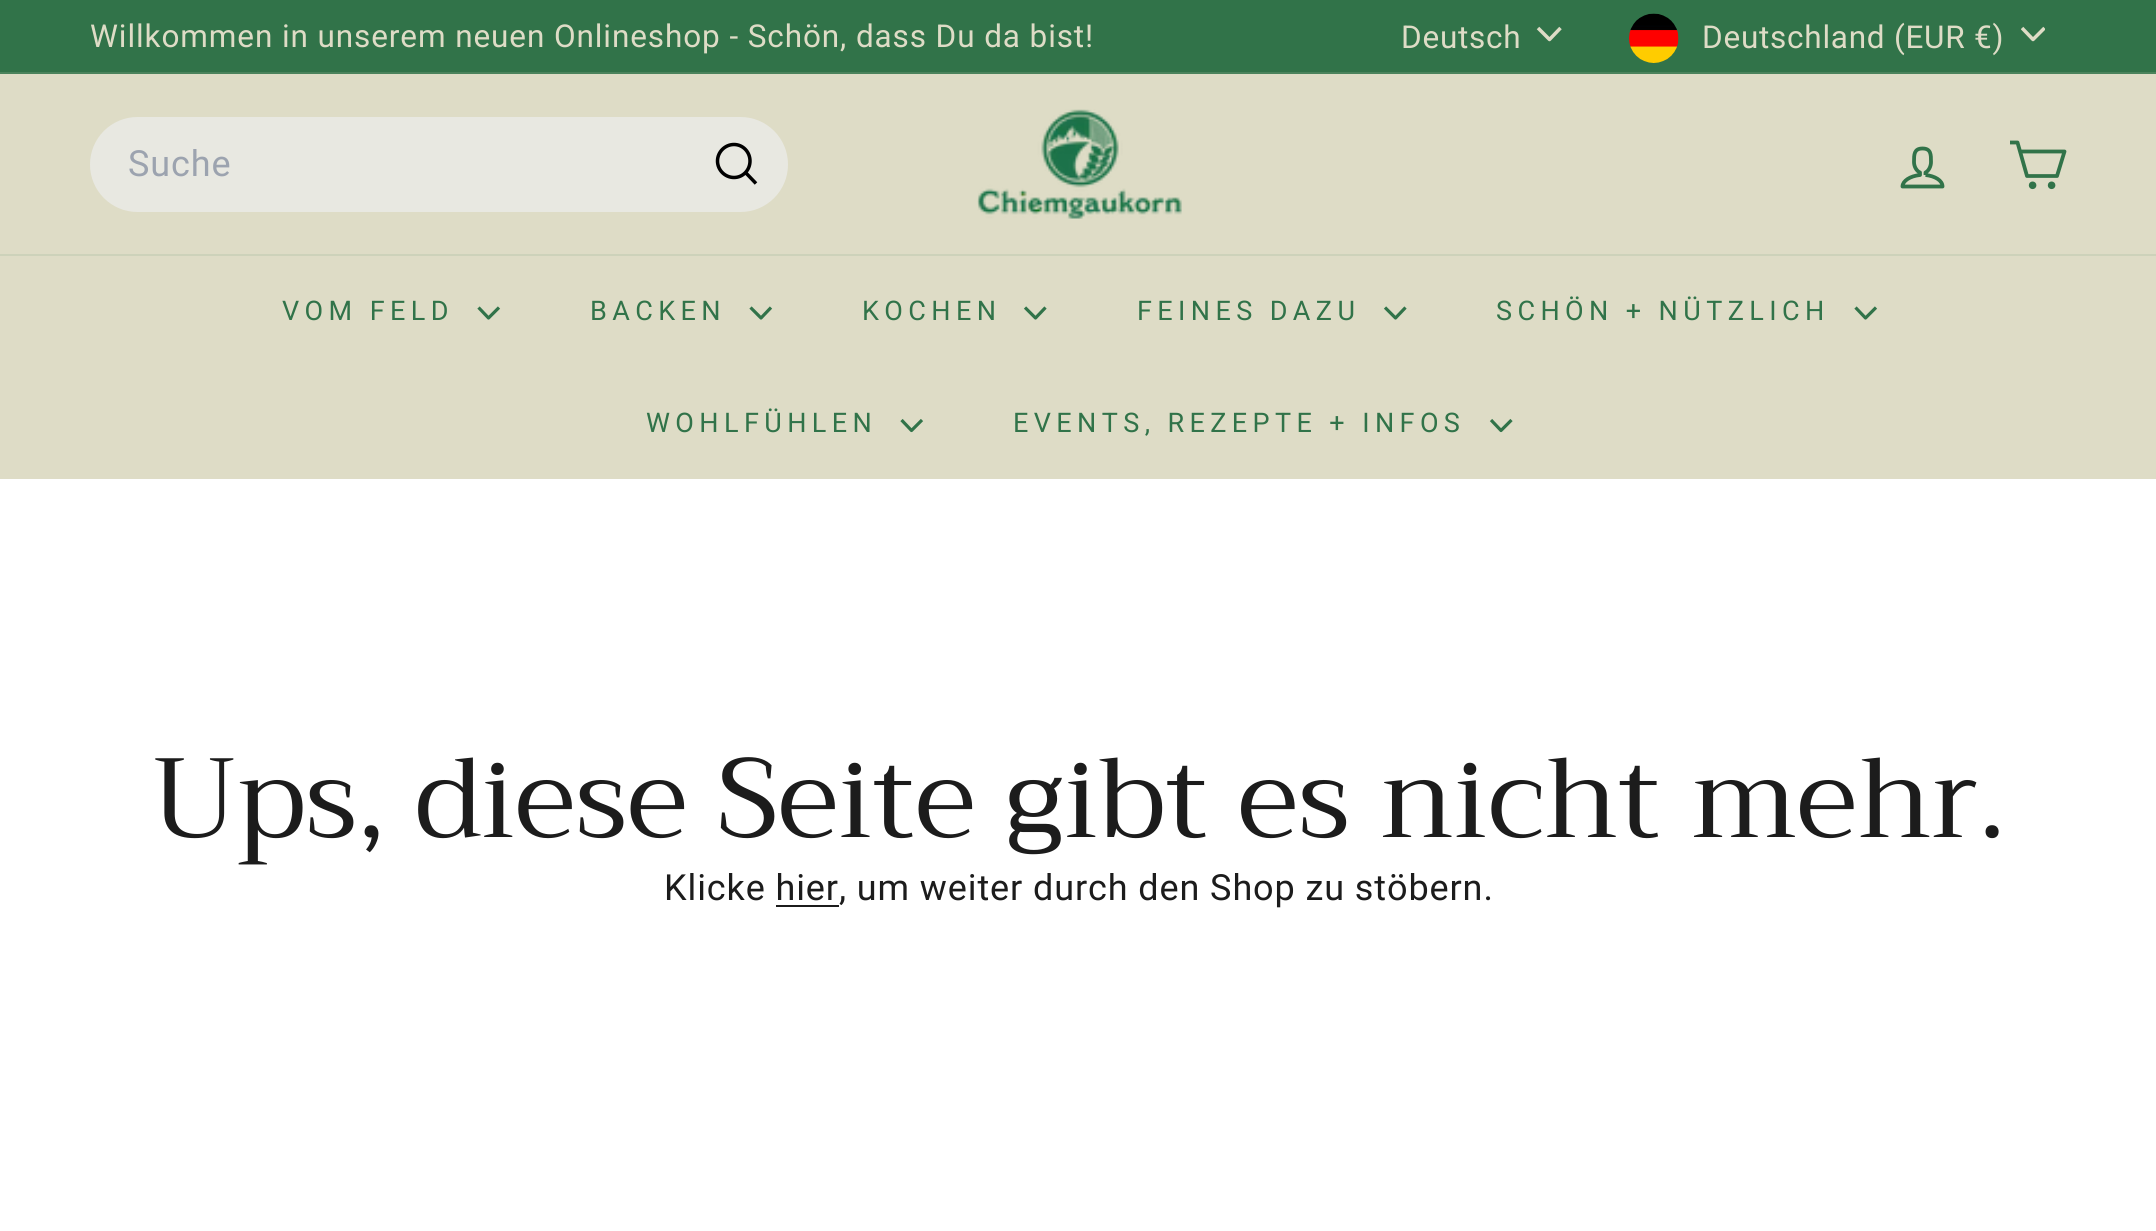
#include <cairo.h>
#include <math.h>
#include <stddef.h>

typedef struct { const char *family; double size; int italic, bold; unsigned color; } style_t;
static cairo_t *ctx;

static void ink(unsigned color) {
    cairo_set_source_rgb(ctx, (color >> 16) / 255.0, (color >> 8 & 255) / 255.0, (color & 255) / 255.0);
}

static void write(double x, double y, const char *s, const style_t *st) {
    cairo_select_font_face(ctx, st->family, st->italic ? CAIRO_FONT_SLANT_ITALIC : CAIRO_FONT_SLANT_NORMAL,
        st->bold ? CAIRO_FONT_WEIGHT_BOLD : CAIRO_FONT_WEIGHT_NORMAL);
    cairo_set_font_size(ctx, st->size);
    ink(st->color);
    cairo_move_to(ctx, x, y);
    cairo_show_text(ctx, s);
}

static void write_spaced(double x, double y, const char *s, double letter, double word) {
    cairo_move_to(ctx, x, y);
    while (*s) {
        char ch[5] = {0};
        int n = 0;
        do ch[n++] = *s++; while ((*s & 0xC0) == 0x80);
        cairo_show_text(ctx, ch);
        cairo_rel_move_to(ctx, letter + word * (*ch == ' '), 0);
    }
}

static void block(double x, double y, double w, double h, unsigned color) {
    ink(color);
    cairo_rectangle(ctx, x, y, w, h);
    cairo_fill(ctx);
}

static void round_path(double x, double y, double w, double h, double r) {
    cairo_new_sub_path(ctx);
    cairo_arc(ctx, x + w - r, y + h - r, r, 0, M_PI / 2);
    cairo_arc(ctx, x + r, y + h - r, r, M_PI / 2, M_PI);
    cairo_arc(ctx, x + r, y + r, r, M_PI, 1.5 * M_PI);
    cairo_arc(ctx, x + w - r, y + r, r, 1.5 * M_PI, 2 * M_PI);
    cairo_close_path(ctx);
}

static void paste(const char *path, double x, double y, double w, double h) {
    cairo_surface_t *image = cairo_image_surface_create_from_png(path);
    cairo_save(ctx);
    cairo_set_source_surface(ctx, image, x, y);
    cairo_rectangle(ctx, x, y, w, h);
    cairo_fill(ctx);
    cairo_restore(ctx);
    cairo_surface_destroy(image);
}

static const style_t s1 = {"Trirong", 112.5, 0, 0, 0x1c1c1c};

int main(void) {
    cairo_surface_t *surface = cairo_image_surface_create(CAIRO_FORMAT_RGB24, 2156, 1231);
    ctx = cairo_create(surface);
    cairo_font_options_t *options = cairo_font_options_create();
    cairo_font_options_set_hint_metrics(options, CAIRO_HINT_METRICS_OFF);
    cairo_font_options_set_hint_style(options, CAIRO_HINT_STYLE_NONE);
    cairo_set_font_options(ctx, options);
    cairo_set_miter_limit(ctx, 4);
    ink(0xffffff);
    cairo_paint(ctx);
    block(0, 0, 2156, 72, 0x317349);
    cairo_select_font_face(ctx, "Roboto", CAIRO_FONT_SLANT_NORMAL, CAIRO_FONT_WEIGHT_NORMAL);
    cairo_set_font_size(ctx, 31.5);
    ink(0xdedcc6);
    write_spaced(90, 47, "Willkommen in unserem neuen Onlineshop - Schön, dass Du da bist!", 0.9, 0);
    write_spaced(1401, 48, "Deutsch", 0.75, 0);
    cairo_new_path(ctx);
    cairo_move_to(ctx, 1538, 28);
    cairo_line_to(ctx, 1549.5, 39.5);
    cairo_line_to(ctx, 1560.5, 28);
    cairo_set_line_width(ctx, 3.5);
    cairo_set_line_join(ctx, CAIRO_LINE_JOIN_ROUND);
    cairo_stroke(ctx);
    paste("pic1.png", 1629, 13, 50, 50);
    write_spaced(1702, 48, "Deutschland (EUR €)", 0.75, 0);
    cairo_save(ctx);
    cairo_rectangle(ctx, 2021, 23, 24, 24);
    cairo_clip(ctx);
    cairo_new_path(ctx);
    cairo_move_to(ctx, 2022, 28);
    cairo_line_to(ctx, 2033, 39.5);
    cairo_line_to(ctx, 2044.5, 28);
    cairo_stroke(ctx);
    cairo_restore(ctx);
    block(0, 72, 2156, 2, 0x4b835c);
    block(0, 74, 2156, 180, 0xdedcc6);
    ink(0xe8e8e1);
    round_path(91, 118, 696, 93, 46.5);
    cairo_fill_preserve(ctx);
    cairo_set_line_width(ctx, 2);
    cairo_set_line_join(ctx, CAIRO_LINE_JOIN_MITER);
    cairo_stroke(ctx);
    cairo_set_font_size(ctx, 36);
    ink(0x9ca3af);
    write_spaced(128, 176, "Suche", 0.9, 0);
    cairo_new_path(ctx);
    cairo_move_to(ctx, 750, 161);
    cairo_curve_to(ctx, 750, 170, 743, 177.5, 734, 177.5);
    cairo_curve_to(ctx, 725, 177.5, 717.5, 170, 717.5, 161);
    cairo_curve_to(ctx, 717.5, 152, 725, 144.5, 734, 144.5);
    cairo_curve_to(ctx, 743, 144.5, 750, 152, 750, 161);
    cairo_move_to(ctx, 756, 183.5);
    cairo_line_to(ctx, 745.5, 172.5);
    ink(0x000000);
    cairo_set_line_width(ctx, 3.5);
    cairo_set_line_join(ctx, CAIRO_LINE_JOIN_ROUND);
    cairo_stroke(ctx);
    paste("pic2.png", 977, 109, 205, 110);
    cairo_new_path(ctx);
    cairo_move_to(ctx, 1925.5, 175);
    cairo_line_to(ctx, 1925.5, 172.5);
    cairo_curve_to(ctx, 1928.5, 171, 1931, 166.5, 1931, 162);
    cairo_curve_to(ctx, 1931, 154.5, 1931, 148.5, 1922.5, 148.5);
    cairo_curve_to(ctx, 1914, 148.5, 1914, 154.5, 1914, 162);
    cairo_curve_to(ctx, 1914, 166.5, 1916.5, 171, 1920, 172.5);
    cairo_line_to(ctx, 1920, 175);
    cairo_curve_to(ctx, 1910, 176, 1902.5, 181, 1902.5, 186.5);
    cairo_line_to(ctx, 1942.5, 186.5);
    cairo_curve_to(ctx, 1942.5, 180.5, 1935, 176, 1925.5, 175);
    ink(0x317349);
    cairo_set_line_width(ctx, 3.8);
    cairo_stroke(ctx);
    cairo_new_path(ctx);
    cairo_move_to(ctx, 2020.5, 151.5);
    cairo_line_to(ctx, 2064.5, 151.5);
    cairo_line_to(ctx, 2057, 176);
    cairo_line_to(ctx, 2027, 176);
    cairo_line_to(ctx, 2017.5, 142.5);
    cairo_line_to(ctx, 2010, 142.5);
    cairo_stroke(ctx);
    cairo_arc(ctx, 2032.6, 185.3, 1.9, 0, 2 * M_PI);
    cairo_set_line_join(ctx, CAIRO_LINE_JOIN_MITER);
    cairo_stroke(ctx);
    cairo_arc(ctx, 2051.6, 185.3, 1.9, 0, 2 * M_PI);
    cairo_stroke(ctx);
    block(0, 256, 2156, 223, 0xdedcc6);
    block(0, 254, 2156, 2, 0xcdd2ba);
    cairo_set_font_size(ctx, 27);
    ink(0x317349);
    write_spaced(282, 320, "VOM FELD", 5.4, 0);
    cairo_new_path(ctx);
    cairo_move_to(ctx, 478.5, 307.5);
    cairo_line_to(ctx, 488.5, 318);
    cairo_line_to(ctx, 499, 307.5);
    cairo_set_line_width(ctx, 3.2);
    cairo_set_line_join(ctx, CAIRO_LINE_JOIN_ROUND);
    cairo_stroke(ctx);
    write_spaced(590, 320, "BACKEN", 5.4, 0);
    cairo_new_path(ctx);
    cairo_move_to(ctx, 750.5, 307.5);
    cairo_line_to(ctx, 761, 318);
    cairo_line_to(ctx, 771, 307.5);
    cairo_stroke(ctx);
    write_spaced(862, 320, "KOCHEN", 5.4, 0);
    cairo_new_path(ctx);
    cairo_move_to(ctx, 1025, 307.5);
    cairo_line_to(ctx, 1035.5, 318);
    cairo_line_to(ctx, 1045.5, 307.5);
    cairo_stroke(ctx);
    write_spaced(1137, 320, "FEINES DAZU", 5.4, 0);
    cairo_new_path(ctx);
    cairo_move_to(ctx, 1385, 307.5);
    cairo_line_to(ctx, 1395.5, 318);
    cairo_line_to(ctx, 1405.5, 307.5);
    cairo_stroke(ctx);
    write_spaced(1496, 320, "SCHÖN + NÜTZLICH", 5.4, 0);
    cairo_new_path(ctx);
    cairo_move_to(ctx, 1855.5, 307.5);
    cairo_line_to(ctx, 1865.5, 318);
    cairo_line_to(ctx, 1876, 307.5);
    cairo_stroke(ctx);
    write_spaced(646, 432, "WOHLFÜHLEN", 5.4, 0);
    cairo_new_path(ctx);
    cairo_move_to(ctx, 901.5, 420);
    cairo_line_to(ctx, 911.5, 430.5);
    cairo_line_to(ctx, 922, 420);
    cairo_stroke(ctx);
    write_spaced(1013, 432, "EVENTS, REZEPTE + INFOS", 5.4, 0);
    cairo_new_path(ctx);
    cairo_move_to(ctx, 1491, 420);
    cairo_line_to(ctx, 1501, 430.5);
    cairo_line_to(ctx, 1511.5, 420);
    cairo_stroke(ctx);
    write(151, 837, "Ups, diese Seite gibt es nicht mehr.", &s1);
    cairo_select_font_face(ctx, "Roboto", CAIRO_FONT_SLANT_NORMAL, CAIRO_FONT_WEIGHT_NORMAL);
    cairo_set_font_size(ctx, 36);
    write_spaced(664, 900, "Klicke hier, um weiter durch den Shop zu stöbern.", 0.9, 0);
    block(776, 905, 63, 2, 0x1c1c1c);
    cairo_surface_write_to_png(surface, "screenshot.png");
    cairo_font_options_destroy(options);
    cairo_destroy(ctx);
    cairo_surface_destroy(surface);
    return 0;
}
